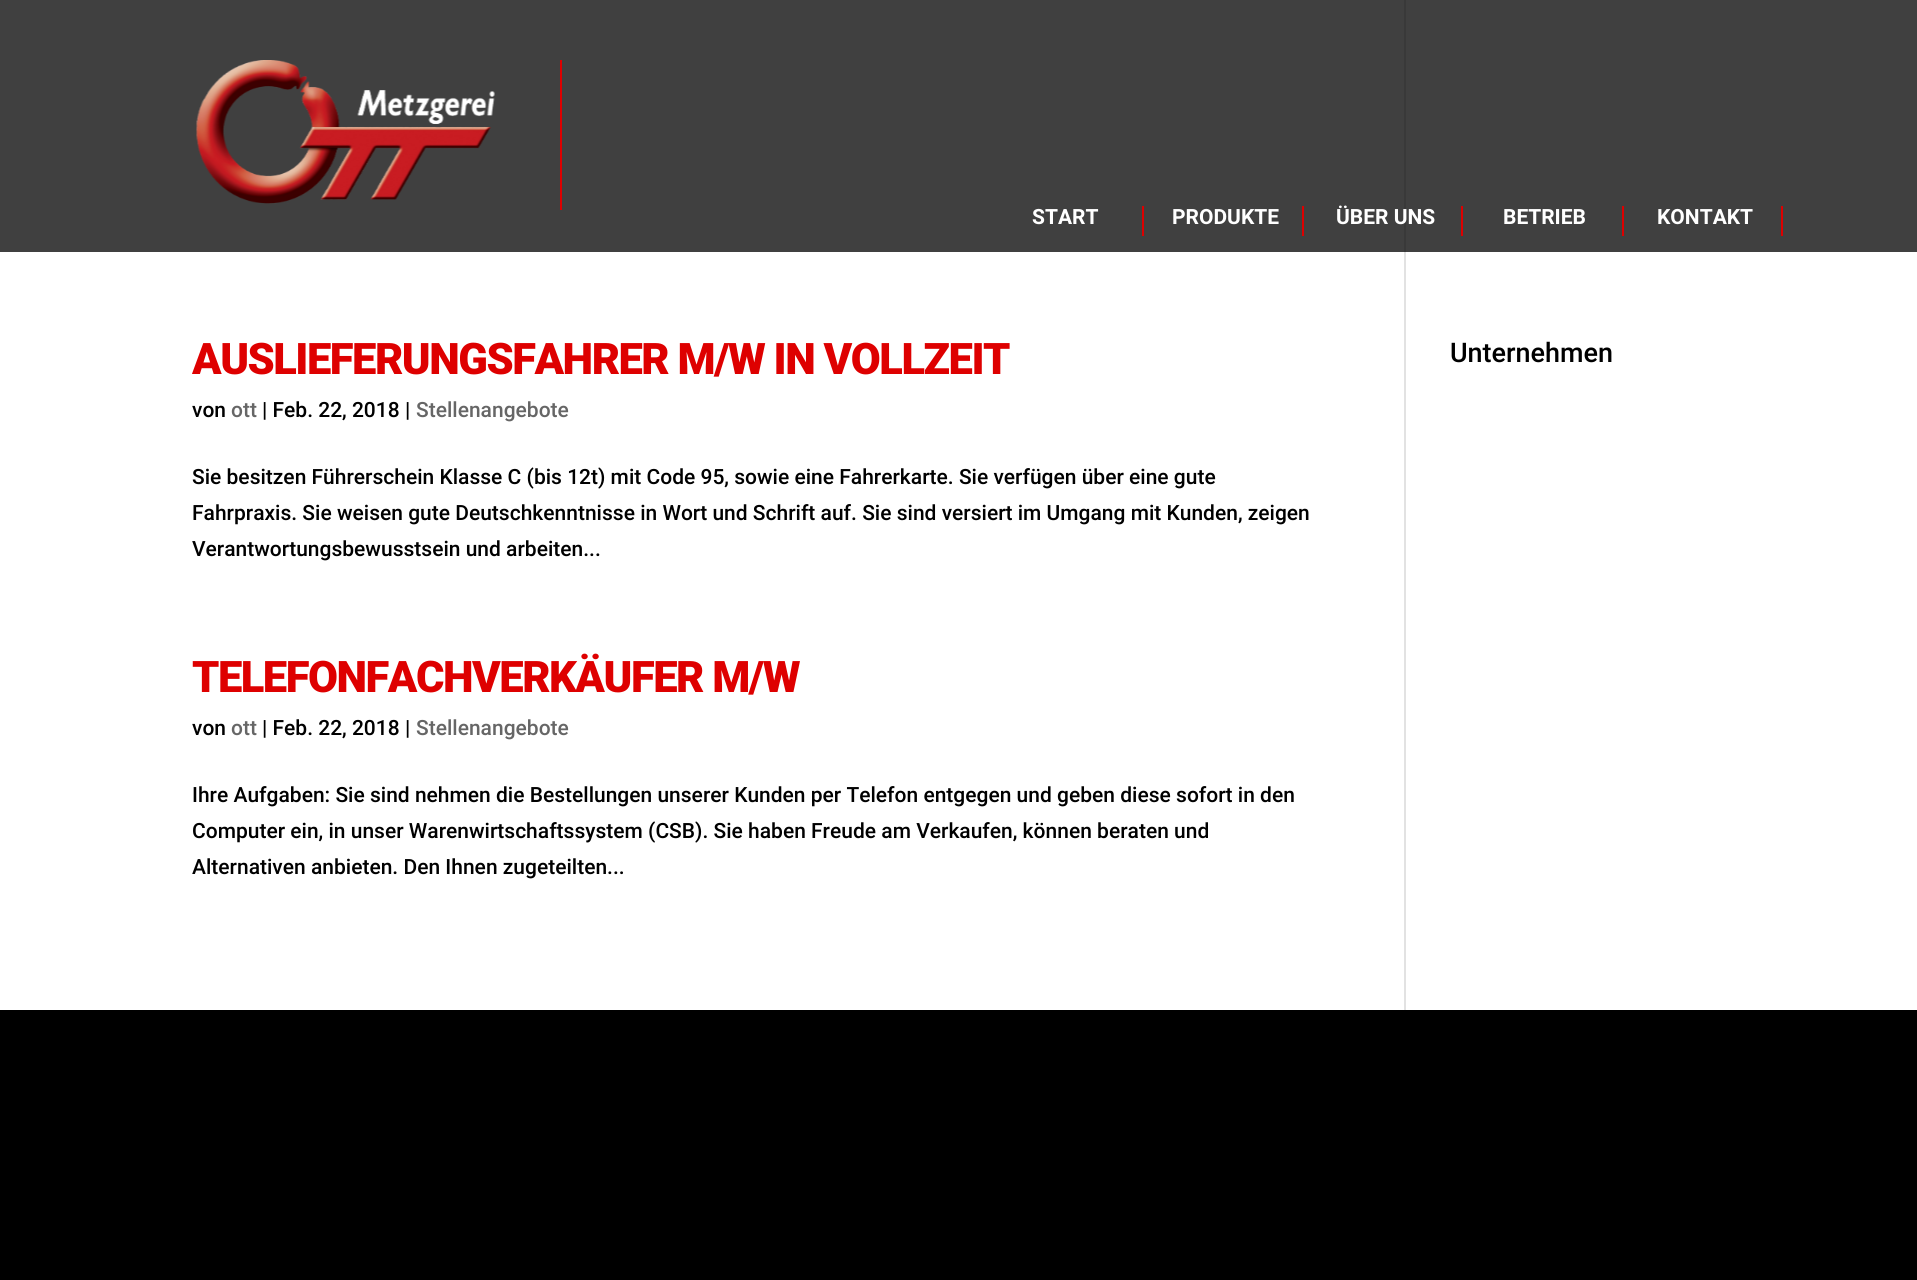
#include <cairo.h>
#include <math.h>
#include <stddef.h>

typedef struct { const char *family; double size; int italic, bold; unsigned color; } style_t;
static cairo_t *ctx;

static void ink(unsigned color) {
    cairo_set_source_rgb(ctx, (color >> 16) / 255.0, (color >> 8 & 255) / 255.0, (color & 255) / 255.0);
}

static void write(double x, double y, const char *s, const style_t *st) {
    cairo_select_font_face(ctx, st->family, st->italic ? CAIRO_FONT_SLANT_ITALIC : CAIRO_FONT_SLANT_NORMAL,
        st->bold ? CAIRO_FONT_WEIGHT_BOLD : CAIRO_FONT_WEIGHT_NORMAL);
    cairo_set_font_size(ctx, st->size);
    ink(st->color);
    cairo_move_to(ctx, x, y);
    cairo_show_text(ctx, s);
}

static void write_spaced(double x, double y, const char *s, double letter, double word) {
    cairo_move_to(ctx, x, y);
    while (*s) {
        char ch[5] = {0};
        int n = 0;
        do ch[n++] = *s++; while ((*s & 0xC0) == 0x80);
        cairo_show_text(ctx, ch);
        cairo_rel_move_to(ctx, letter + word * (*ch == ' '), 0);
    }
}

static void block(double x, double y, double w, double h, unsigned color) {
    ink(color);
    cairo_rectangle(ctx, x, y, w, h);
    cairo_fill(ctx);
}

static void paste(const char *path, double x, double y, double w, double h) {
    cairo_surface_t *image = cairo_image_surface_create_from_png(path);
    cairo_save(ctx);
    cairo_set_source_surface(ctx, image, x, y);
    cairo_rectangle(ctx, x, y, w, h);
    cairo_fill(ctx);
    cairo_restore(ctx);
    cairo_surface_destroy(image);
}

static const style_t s1 = {"Roboto", 21, 0, 1, 0xffffff};
static const style_t s2 = {"Roboto Medium", 21, 0, 0, 0x000000};
static const style_t s3 = {"Roboto Medium", 21, 0, 0, 0x666666};
static const style_t s4 = {"Roboto Medium", 27, 0, 0, 0x000000};

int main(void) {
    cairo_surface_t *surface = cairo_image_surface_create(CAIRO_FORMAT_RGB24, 1917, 1280);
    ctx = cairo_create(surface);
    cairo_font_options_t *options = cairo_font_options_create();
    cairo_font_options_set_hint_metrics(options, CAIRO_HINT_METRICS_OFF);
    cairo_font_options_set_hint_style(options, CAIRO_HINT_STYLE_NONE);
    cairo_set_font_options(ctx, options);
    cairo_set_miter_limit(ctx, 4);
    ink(0x000000);
    cairo_paint(ctx);
    block(0, 0, 1917, 252, 0x404040);
    block(560, 60, 2, 150, 0xde0000);
    paste("pic1.png", 196, 60, 299, 144);
    block(1142, 206, 2, 30, 0xde0000);
    write(1032, 224, "START", &s1);
    block(1302, 206, 2, 30, 0xde0000);
    write(1172, 224, "PRODUKTE", &s1);
    block(1461, 206, 2, 30, 0xde0000);
    block(1404, 0, 2, 252, 0x393939);
    write(1336, 224, "ÜBER UNS", &s1);
    block(1622, 206, 2, 30, 0xde0000);
    write(1503, 224, "BETRIEB", &s1);
    block(1781, 206, 2, 30, 0xde0000);
    write(1657, 224, "KONTAKT", &s1);
    block(0, 252, 1917, 758, 0xffffff);
    block(1404, 252, 2, 758, 0xe2e2e2);
    cairo_select_font_face(ctx, "Roboto Black", CAIRO_FONT_SLANT_NORMAL, CAIRO_FONT_WEIGHT_NORMAL);
    cairo_set_font_size(ctx, 43.5);
    ink(0xde0000);
    write_spaced(192, 374, "AUSLIEFERUNGSFAHRER M/W IN VOLLZEIT", -1.5, 0);
    write(192, 417, "von", &s2);
    write(231, 417, "ott", &s3);
    write(262, 417, "| Feb. 22, 2018 |", &s2);
    write(416, 417, "Stellenangebote", &s3);
    write(192, 484, "Sie besitzen Führerschein Klasse C (bis 12t) mit Code 95, sowie eine Fahrerkarte. Sie verfügen über eine gute", &s2);
    write(192, 520, "Fahrpraxis. Sie weisen gute Deutschkenntnisse in Wort und Schrift auf. Sie sind versiert im Umgang mit Kunden, zeigen", &s2);
    write(192, 556, "Verantwortungsbewusstsein und arbeiten...", &s2);
    cairo_select_font_face(ctx, "Roboto Black", CAIRO_FONT_SLANT_NORMAL, CAIRO_FONT_WEIGHT_NORMAL);
    cairo_set_font_size(ctx, 43.5);
    ink(0xde0000);
    write_spaced(192, 692, "TELEFONFACHVERKÄUFER M/W", -1.5, 0);
    write(192, 735, "von", &s2);
    write(231, 735, "ott", &s3);
    write(262, 735, "| Feb. 22, 2018 |", &s2);
    write(416, 735, "Stellenangebote", &s3);
    write(192, 802, "Ihre Aufgaben: Sie sind nehmen die Bestellungen unserer Kunden per Telefon entgegen und geben diese sofort in den", &s2);
    write(192, 838, "Computer ein, in unser Warenwirtschaftssystem (CSB). Sie haben Freude am Verkaufen, können beraten und", &s2);
    write(192, 874, "Alternativen anbieten. Den Ihnen zugeteilten...", &s2);
    write(1450, 362, "Unternehmen", &s4);
    cairo_surface_write_to_png(surface, "screenshot.png");
    cairo_font_options_destroy(options);
    cairo_destroy(ctx);
    cairo_surface_destroy(surface);
    return 0;
}
